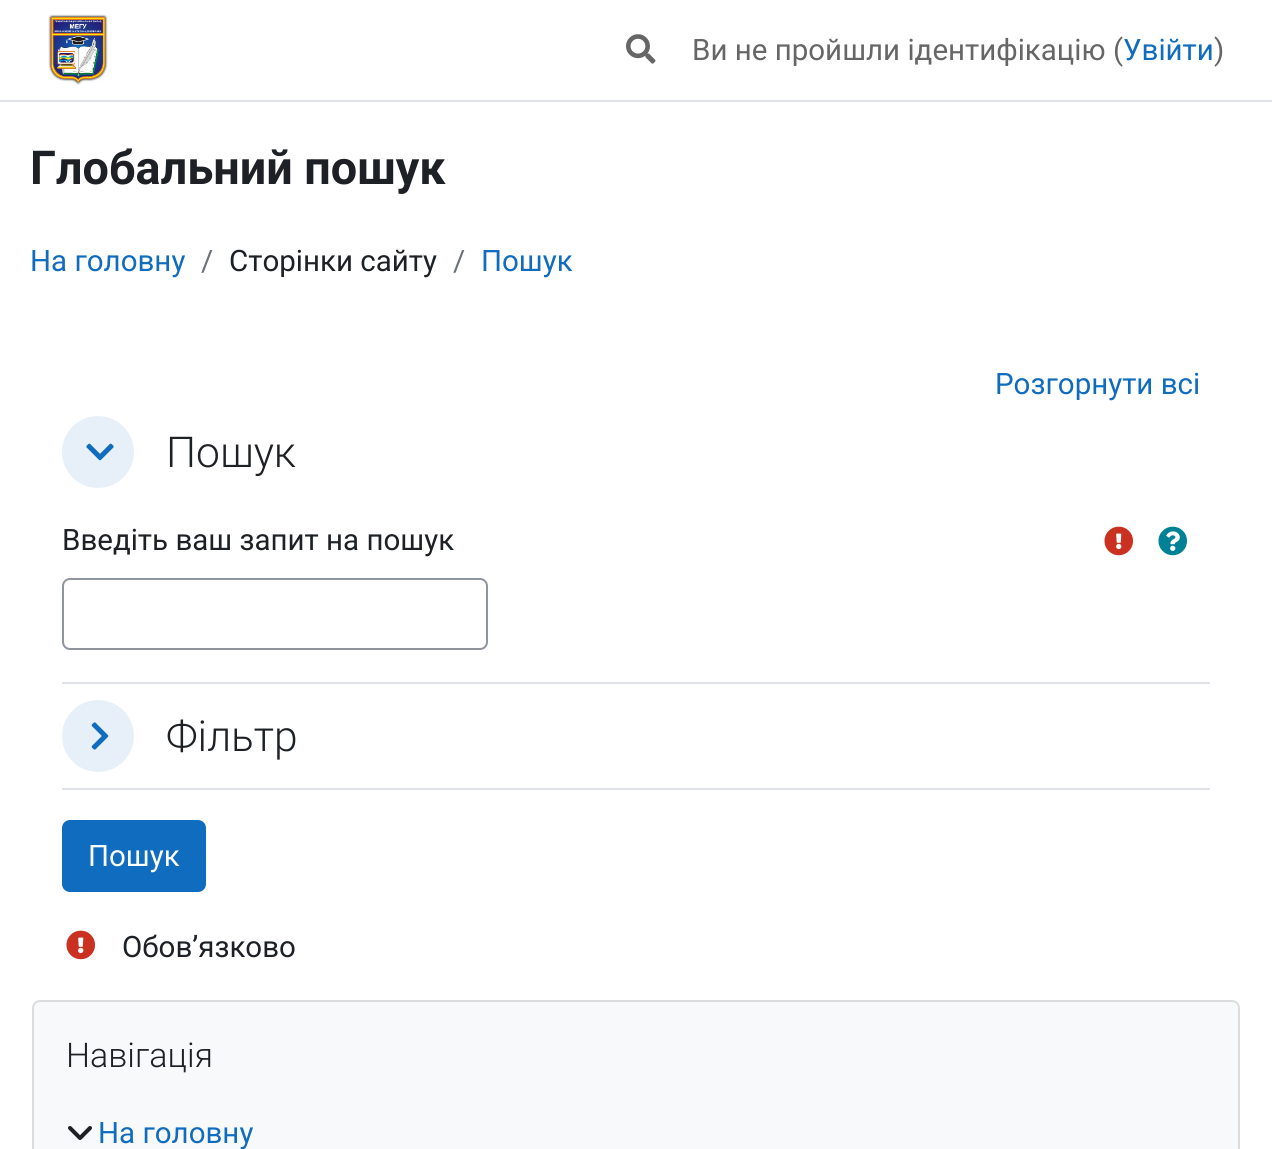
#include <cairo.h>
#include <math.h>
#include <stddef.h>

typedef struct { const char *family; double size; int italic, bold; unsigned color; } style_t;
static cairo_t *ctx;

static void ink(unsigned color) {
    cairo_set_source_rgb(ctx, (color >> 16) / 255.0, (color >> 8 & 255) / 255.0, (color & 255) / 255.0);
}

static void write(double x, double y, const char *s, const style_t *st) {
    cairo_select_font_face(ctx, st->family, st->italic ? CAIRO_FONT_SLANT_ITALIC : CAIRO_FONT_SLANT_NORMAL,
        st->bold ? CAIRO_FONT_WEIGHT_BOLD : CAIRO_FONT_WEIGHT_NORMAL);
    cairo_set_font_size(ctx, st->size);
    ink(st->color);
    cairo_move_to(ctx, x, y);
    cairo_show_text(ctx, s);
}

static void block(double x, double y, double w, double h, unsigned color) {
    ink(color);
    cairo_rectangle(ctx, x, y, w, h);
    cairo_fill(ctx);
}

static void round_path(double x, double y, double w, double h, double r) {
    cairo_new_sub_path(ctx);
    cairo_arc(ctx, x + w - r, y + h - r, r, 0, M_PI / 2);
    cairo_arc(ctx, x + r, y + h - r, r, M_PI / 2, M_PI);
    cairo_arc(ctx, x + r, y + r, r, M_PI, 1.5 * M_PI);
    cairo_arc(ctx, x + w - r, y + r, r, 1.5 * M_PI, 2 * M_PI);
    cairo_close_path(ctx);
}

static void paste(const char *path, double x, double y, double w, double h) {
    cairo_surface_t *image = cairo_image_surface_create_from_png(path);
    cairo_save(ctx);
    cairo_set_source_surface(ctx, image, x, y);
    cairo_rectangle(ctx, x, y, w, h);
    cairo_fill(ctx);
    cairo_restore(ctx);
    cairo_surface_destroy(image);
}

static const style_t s1 = {"Roboto", 29.5, 0, 0, 0x666666};
static const style_t s2 = {"Roboto", 29.5, 0, 0, 0x0f6cbf};
static const style_t s3 = {"Roboto", 46.75, 0, 1, 0x1d2125};
static const style_t s4 = {"Roboto", 29.5, 0, 0, 0x6a737b};
static const style_t s5 = {"Roboto", 29.5, 0, 0, 0x1d2125};
static const style_t s6 = {"Roboto Light", 42.5, 0, 0, 0x1d2125};
static const style_t s7 = {"Roboto", 29.5, 0, 0, 0xffffff};
static const style_t s8 = {"Roboto Light", 34, 0, 0, 0x1d2125};

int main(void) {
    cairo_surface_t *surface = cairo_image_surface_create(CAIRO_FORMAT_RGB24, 1272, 1149);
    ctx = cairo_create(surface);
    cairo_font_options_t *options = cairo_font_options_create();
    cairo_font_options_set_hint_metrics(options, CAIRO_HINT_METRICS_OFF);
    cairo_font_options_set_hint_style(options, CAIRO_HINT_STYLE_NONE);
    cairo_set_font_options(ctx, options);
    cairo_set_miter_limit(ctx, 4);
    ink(0xffffff);
    cairo_paint(ctx);
    block(0, 100, 1272, 2, 0xdee2e6);
    paste("pic1.png", 48, 14, 60, 71);
    paste("pic2.png", 626, 34, 30, 30);
    write(692, 60, "Ви не пройшли ідентифікацію (", &s1);
    write(1123, 60, "Увійти", &s2);
    write(1214, 60, ")", &s1);
    write(30, 184, "Глобальний пошук", &s3);
    write(30, 271, "На головну", &s2);
    write(201, 271, "/", &s4);
    write(229, 271, "Сторінки сайту", &s5);
    write(453, 271, "/", &s4);
    write(481, 271, "Пошук", &s2);
    write(995, 394, "Розгорнути всі", &s2);
    block(62, 682, 1148, 2, 0xdee2e6);
    ink(0xe7f0f9);
    cairo_new_path(ctx);
    cairo_arc(ctx, 98, 452, 36, 0, 2 * M_PI);
    cairo_fill(ctx);
    paste("pic3.png", 86, 443, 28, 18);
    write(166, 467, "Пошук", &s6);
    write(62, 550, "Введіть ваш запит на пошук", &s5);
    paste("pic4.png", 1104, 526, 29, 30);
    paste("pic5.png", 1158, 526, 29, 30);
    round_path(63, 579, 424, 70, 7);
    ink(0x8f959e);
    cairo_stroke(ctx);
    block(62, 788, 1148, 2, 0xdee2e6);
    ink(0xe7f0f9);
    cairo_arc(ctx, 98, 736, 36, 0, 2 * M_PI);
    cairo_fill(ctx);
    paste("pic6.png", 91, 722, 18, 28);
    write(166, 751, "Фільтр", &s6);
    ink(0x0f6cbf);
    round_path(63, 821, 142, 70, 7);
    cairo_fill_preserve(ctx);
    cairo_stroke(ctx);
    write(88, 866, "Пошук", &s7);
    paste("pic4.png", 66, 930, 29, 30);
    write(122, 957, "Обов’язково", &s5);
    ink(0xf8f9fa);
    round_path(32, 1000, 1208, 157, 8);
    cairo_fill(ctx);
    round_path(33, 1001, 1206, 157, 7);
    cairo_set_source_rgba(ctx, 0, 0, 0, 0.12);
    cairo_stroke(ctx);
    write(66, 1067, "Навігація", &s8);
    paste("pic7.png", 68, 1126, 24, 14);
    write(98, 1143, "На головну", &s2);
    cairo_surface_write_to_png(surface, "screenshot.png");
    cairo_font_options_destroy(options);
    cairo_destroy(ctx);
    cairo_surface_destroy(surface);
    return 0;
}
